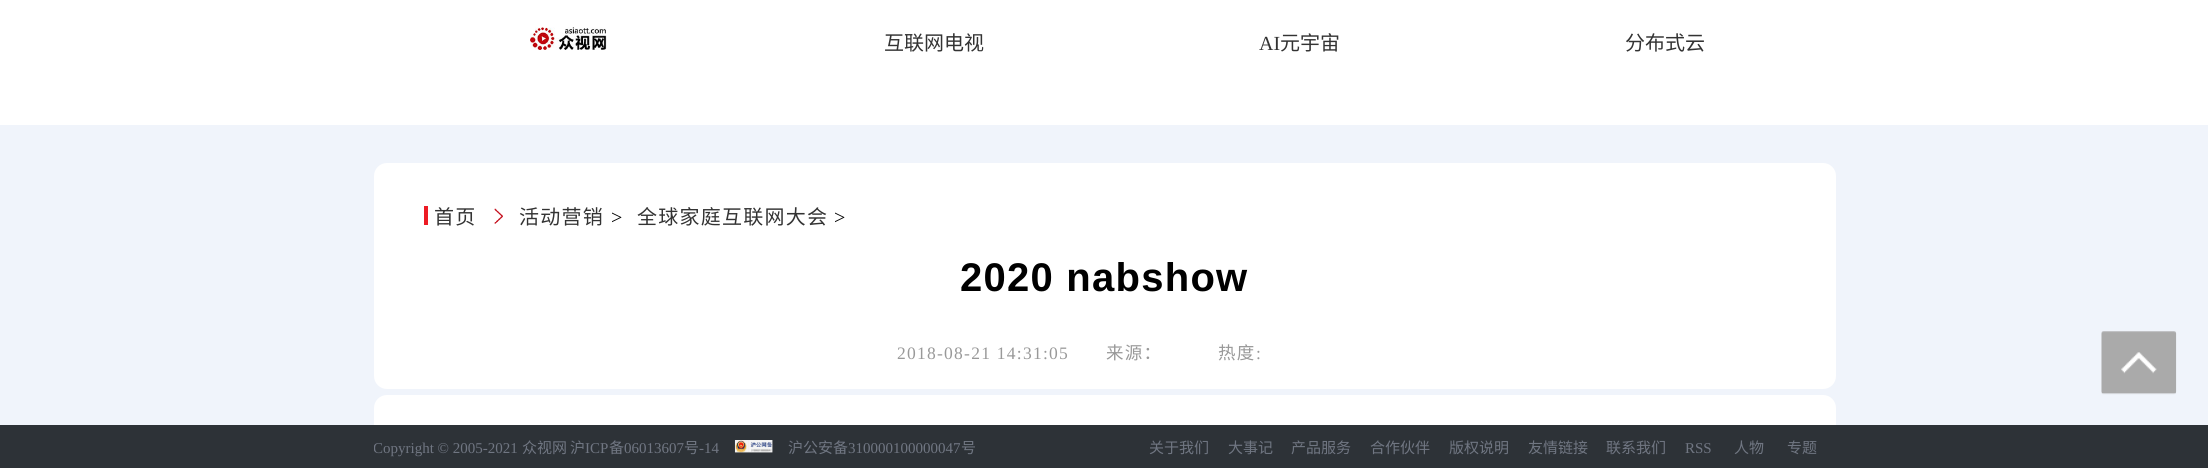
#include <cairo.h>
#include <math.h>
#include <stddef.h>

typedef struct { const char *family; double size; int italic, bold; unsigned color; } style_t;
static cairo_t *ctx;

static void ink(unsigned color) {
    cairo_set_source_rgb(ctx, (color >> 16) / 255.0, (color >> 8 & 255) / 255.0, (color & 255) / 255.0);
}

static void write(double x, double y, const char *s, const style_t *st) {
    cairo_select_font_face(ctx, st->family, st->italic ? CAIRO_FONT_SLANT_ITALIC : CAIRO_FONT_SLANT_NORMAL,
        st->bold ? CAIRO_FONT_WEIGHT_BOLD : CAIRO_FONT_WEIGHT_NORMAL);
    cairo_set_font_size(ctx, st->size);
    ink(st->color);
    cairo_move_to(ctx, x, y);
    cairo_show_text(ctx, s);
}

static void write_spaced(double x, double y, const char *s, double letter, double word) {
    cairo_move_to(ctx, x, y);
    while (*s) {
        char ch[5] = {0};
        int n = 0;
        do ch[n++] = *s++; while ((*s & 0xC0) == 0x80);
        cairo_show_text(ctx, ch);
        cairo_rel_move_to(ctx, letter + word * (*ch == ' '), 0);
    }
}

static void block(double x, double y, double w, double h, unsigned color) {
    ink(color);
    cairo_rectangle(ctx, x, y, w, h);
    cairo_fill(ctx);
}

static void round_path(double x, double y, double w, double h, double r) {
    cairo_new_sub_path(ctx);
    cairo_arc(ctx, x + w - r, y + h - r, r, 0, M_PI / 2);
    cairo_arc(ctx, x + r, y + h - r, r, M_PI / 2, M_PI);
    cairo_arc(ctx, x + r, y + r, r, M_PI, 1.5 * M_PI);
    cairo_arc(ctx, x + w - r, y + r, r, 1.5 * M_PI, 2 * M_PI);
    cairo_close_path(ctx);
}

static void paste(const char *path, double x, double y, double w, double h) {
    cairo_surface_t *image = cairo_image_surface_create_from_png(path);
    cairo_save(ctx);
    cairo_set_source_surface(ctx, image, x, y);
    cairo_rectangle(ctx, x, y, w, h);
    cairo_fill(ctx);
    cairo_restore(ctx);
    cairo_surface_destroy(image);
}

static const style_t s1 = {"Noto Sans CJK SC", 20, 0, 0, 0x333333};
static const style_t s2 = {"Liberation Serif", 20, 0, 0, 0x333333};
static const style_t s3 = {"Liberation Serif", 15, 0, 0, 0x707682};
static const style_t s4 = {"Noto Sans CJK SC", 15, 0, 0, 0x707682};

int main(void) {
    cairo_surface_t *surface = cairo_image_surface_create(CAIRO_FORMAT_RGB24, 2208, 468);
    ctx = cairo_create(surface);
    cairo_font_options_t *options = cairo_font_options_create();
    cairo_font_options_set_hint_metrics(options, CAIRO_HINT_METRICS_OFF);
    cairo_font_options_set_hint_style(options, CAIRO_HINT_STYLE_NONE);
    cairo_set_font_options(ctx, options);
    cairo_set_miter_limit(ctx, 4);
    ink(0xffffff);
    cairo_paint(ctx);
    paste("pic1.png", 530, 27, 77, 23);
    write(884, 50, "互联网电视", &s1);
    write(1259, 50, "AI", &s2);
    write(1280, 50, "元宇宙", &s1);
    write(1625, 50, "分布式云", &s1);
    block(0, 125, 2208, 300, 0xf0f4fb);
    ink(0xffffff);
    round_path(374, 163, 1462, 226, 13);
    cairo_fill(ctx);
    block(424, 206, 4, 19, 0xed1b24);
    ink(0x333333);
    write_spaced(434, 224, "首页", 1.25, 0);
    paste("pic2.png", 494, 208, 9, 16);
    write_spaced(519, 224, "活动营销", 1.25, 0);
    cairo_select_font_face(ctx, "Liberation Serif", CAIRO_FONT_SLANT_NORMAL, CAIRO_FONT_WEIGHT_NORMAL);
    ink(0x000000);
    write_spaced(611, 224, ">", 1.25, 0);
    cairo_select_font_face(ctx, "Noto Sans CJK SC", CAIRO_FONT_SLANT_NORMAL, CAIRO_FONT_WEIGHT_NORMAL);
    ink(0x333333);
    write_spaced(637, 224, "全球家庭互联网大会", 1.25, 0);
    cairo_select_font_face(ctx, "Liberation Serif", CAIRO_FONT_SLANT_NORMAL, CAIRO_FONT_WEIGHT_NORMAL);
    ink(0x000000);
    write_spaced(834, 224, ">", 1.25, 0);
    cairo_select_font_face(ctx, "Liberation Sans", CAIRO_FONT_SLANT_NORMAL, CAIRO_FONT_WEIGHT_BOLD);
    cairo_set_font_size(ctx, 40);
    write_spaced(960, 291, "2020 nabshow", 1.25, 0);
    cairo_select_font_face(ctx, "Liberation Serif", CAIRO_FONT_SLANT_NORMAL, CAIRO_FONT_WEIGHT_NORMAL);
    cairo_set_font_size(ctx, 17.5);
    ink(0x999999);
    write_spaced(897, 359, "2018-08-21 14:31:05", 1.25, 0);
    cairo_select_font_face(ctx, "Noto Sans CJK SC", CAIRO_FONT_SLANT_NORMAL, CAIRO_FONT_WEIGHT_NORMAL);
    write_spaced(1106, 359, "来源：", 1.25, 0);
    write_spaced(1218, 359, "热度", 1.25, 0);
    cairo_select_font_face(ctx, "Liberation Serif", CAIRO_FONT_SLANT_NORMAL, CAIRO_FONT_WEIGHT_NORMAL);
    write_spaced(1256, 359, ":", 1.25, 0);
    ink(0xffffff);
    round_path(374, 395, 1462, 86, 13);
    cairo_fill(ctx);
    block(0, 425, 2208, 43, 0x2d3237);
    paste("pic3.png", 2101, 331, 76, 64);
    cairo_save(ctx);
    cairo_rectangle(ctx, 374, 438, 1462, 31);
    cairo_clip(ctx);
    write(373, 453, "Copyright © 2005-2021", &s3);
    cairo_restore(ctx);
    write(522, 453, "众视网", &s4);
    write(570, 453, "沪", &s4);
    write(585, 453, "ICP", &s3);
    write(609, 453, "备", &s4);
    write(624, 453, "06013607", &s3);
    write(684, 453, "号", &s4);
    write(699, 453, "-14", &s3);
    paste("pic4.png", 734, 440, 39, 13);
    write(788, 453, "沪公安备", &s4);
    write(848, 453, "310000100000047", &s3);
    write(961, 453, "号", &s4);
    write(1149, 453, "关于我们", &s4);
    write(1228, 453, "大事记", &s4);
    write(1291, 453, "产品服务", &s4);
    write(1370, 453, "合作伙伴", &s4);
    write(1449, 453, "版权说明", &s4);
    write(1528, 453, "友情链接", &s4);
    write(1606, 453, "联系我们", &s4);
    write(1685, 453, "RSS", &s3);
    write(1734, 453, "人物", &s4);
    write(1787, 453, "专题", &s4);
    cairo_surface_write_to_png(surface, "screenshot.png");
    cairo_font_options_destroy(options);
    cairo_destroy(ctx);
    cairo_surface_destroy(surface);
    return 0;
}
